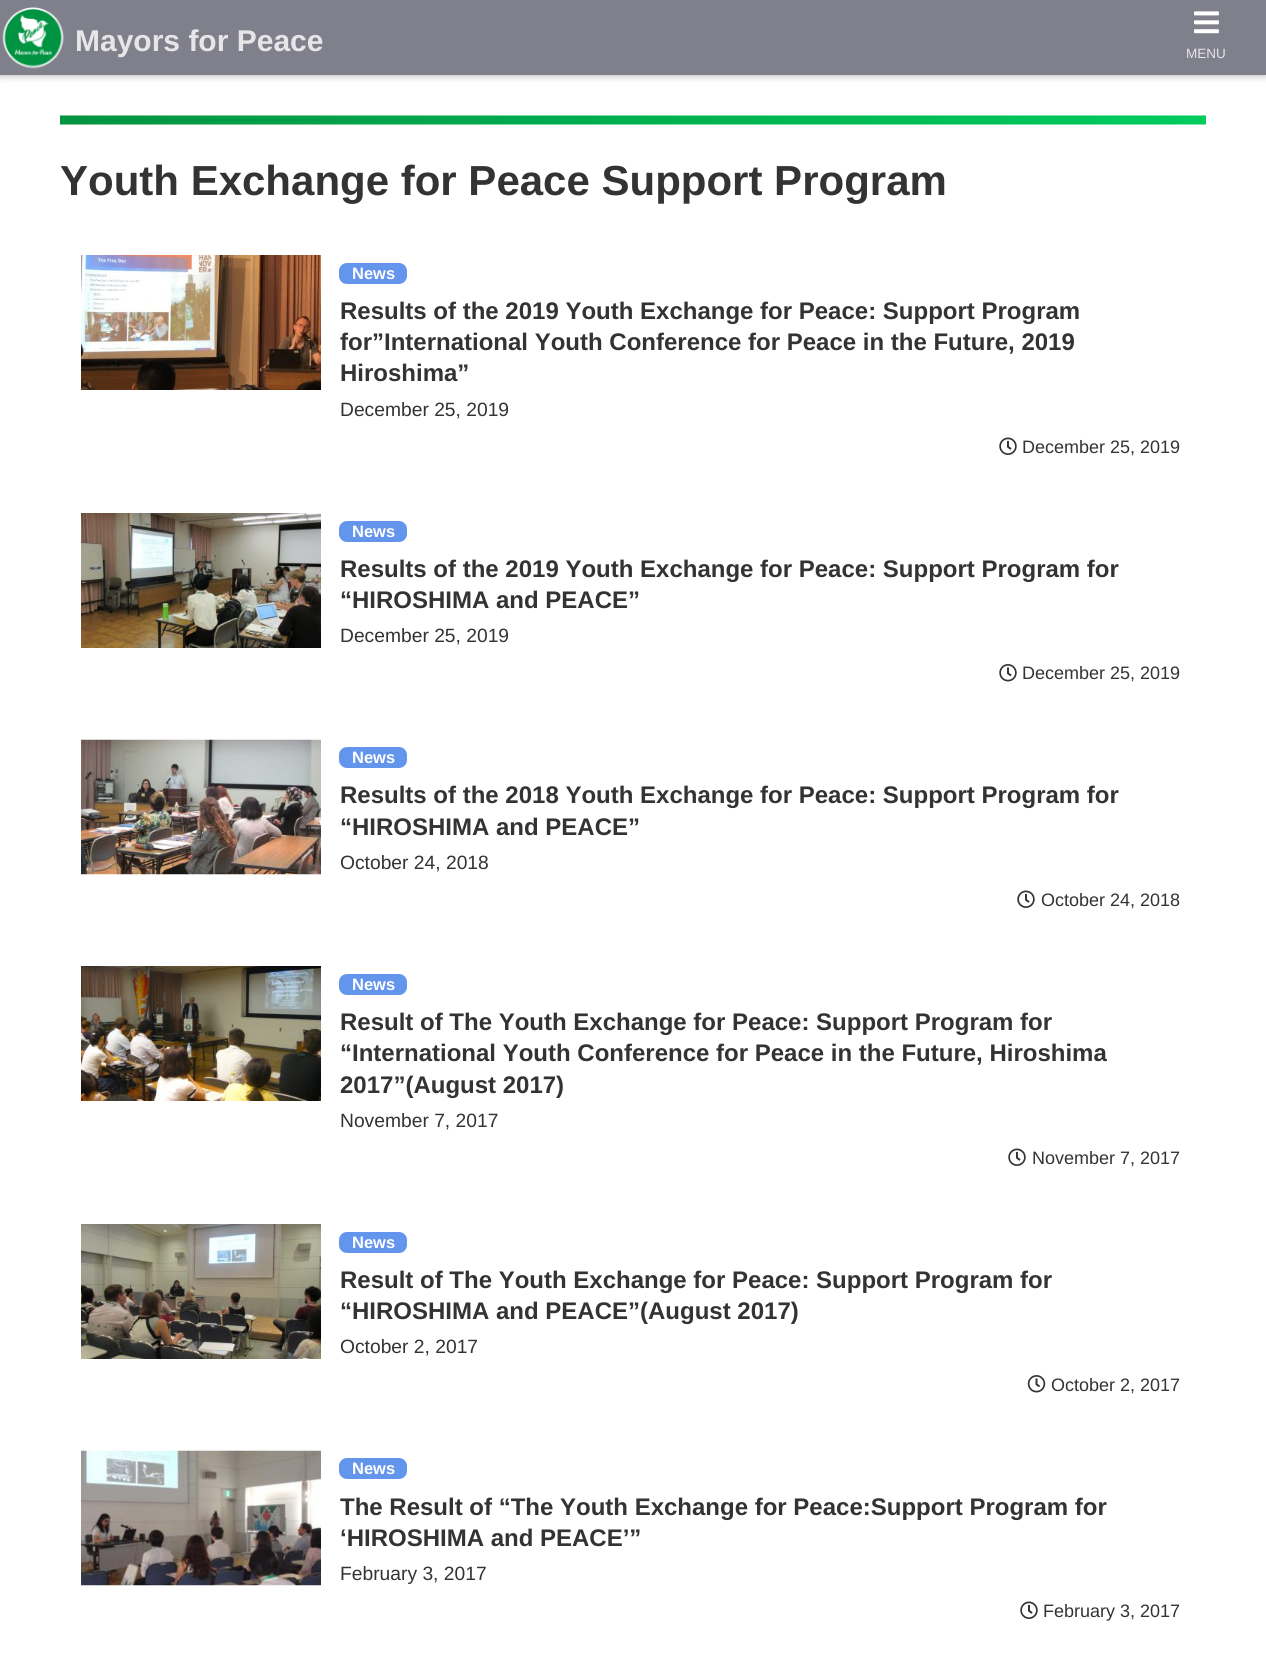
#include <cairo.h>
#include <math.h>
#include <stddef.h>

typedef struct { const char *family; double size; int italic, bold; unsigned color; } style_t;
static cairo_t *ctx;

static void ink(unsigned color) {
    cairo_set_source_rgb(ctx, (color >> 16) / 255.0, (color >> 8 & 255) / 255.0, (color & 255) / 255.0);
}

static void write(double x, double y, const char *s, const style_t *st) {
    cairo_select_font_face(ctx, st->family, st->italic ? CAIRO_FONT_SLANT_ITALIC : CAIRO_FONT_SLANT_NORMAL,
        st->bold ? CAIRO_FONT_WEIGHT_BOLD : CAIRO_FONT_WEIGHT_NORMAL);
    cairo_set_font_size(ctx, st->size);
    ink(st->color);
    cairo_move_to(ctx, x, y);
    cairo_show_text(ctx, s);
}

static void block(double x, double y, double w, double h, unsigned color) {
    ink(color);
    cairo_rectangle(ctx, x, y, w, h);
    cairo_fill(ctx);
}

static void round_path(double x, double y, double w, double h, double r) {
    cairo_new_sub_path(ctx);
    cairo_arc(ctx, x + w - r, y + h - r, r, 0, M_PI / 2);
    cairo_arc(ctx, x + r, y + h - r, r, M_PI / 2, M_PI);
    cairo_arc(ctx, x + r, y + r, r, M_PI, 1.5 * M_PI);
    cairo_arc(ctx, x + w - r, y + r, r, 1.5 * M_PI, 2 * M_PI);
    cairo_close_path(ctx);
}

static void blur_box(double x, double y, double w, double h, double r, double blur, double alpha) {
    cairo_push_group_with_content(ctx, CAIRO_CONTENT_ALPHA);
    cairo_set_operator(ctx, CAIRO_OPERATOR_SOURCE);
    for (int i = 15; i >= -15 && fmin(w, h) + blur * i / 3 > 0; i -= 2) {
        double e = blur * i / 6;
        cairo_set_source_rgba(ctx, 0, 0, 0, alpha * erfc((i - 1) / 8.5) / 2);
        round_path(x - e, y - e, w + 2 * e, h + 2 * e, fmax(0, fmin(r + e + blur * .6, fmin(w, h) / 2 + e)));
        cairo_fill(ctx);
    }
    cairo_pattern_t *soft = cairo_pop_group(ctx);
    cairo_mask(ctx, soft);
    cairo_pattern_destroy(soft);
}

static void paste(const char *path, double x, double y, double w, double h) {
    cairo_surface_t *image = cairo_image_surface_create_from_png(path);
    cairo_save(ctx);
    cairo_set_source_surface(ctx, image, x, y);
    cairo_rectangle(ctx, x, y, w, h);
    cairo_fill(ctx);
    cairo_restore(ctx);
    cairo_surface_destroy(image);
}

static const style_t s1 = {"Liberation Sans", 30, 0, 1, 0xe6e6e8};
static const style_t s2 = {"Liberation Sans", 13.5, 0, 0, 0xe6e6e8};
static const style_t s3 = {"Liberation Sans", 42, 0, 1, 0x333333};
static const style_t s4 = {"Liberation Sans", 16.5, 0, 1, 0xffffff};
static const style_t s5 = {"Liberation Sans", 24, 0, 1, 0x333333};
static const style_t s6 = {"Liberation Sans", 19.25, 0, 0, 0x333333};
static const style_t s7 = {"Liberation Sans", 18, 0, 0, 0x333333};

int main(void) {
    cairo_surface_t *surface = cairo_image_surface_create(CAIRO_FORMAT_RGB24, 1266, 1658);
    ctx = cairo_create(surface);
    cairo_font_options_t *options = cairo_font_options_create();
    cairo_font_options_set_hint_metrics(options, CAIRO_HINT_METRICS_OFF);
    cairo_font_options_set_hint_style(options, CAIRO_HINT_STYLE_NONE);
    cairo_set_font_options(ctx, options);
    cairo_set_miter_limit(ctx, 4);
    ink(0xffffff);
    cairo_paint(ctx);
    ink(0xa9a9a9);
    blur_box(0, 0, 1266, 75, 0, 4, 1);
    block(0, 0, 1266, 75, 0x80808c);
    paste("pic1.png", 2, 7, 62, 62);
    write(75, 51, "Mayors for Peace", &s1);
    paste("pic2.png", 1194, 11, 25, 23);
    write(1186, 58, "MENU", &s2);
    paste("pic3.png", 60, 115, 1146, 10);
    write(60, 195, "Youth Exchange for Peace Support Program", &s3);
    paste("pic4.png", 81, 255, 240, 135);
    ink(0x6495ed);
    round_path(339, 263, 68, 21, 8);
    cairo_fill(ctx);
    write(352, 279, "News", &s4);
    write(340, 319, "Results of the 2019 Youth Exchange for Peace: Support Program", &s5);
    write(340, 350, "for”International Youth Conference for Peace in the Future, 2019", &s5);
    write(340, 381, "Hiroshima”", &s5);
    write(340, 416, "December 25, 2019", &s6);
    paste("pic5.png", 999, 437, 18, 18);
    write(1022, 453, "December 25, 2019", &s7);
    paste("pic6.png", 81, 513, 240, 135);
    ink(0x6495ed);
    round_path(339, 521, 68, 21, 8);
    cairo_fill(ctx);
    write(352, 537, "News", &s4);
    write(340, 577, "Results of the 2019 Youth Exchange for Peace: Support Program for", &s5);
    write(340, 608, "“HIROSHIMA and PEACE”", &s5);
    write(340, 642, "December 25, 2019", &s6);
    paste("pic7.png", 999, 664, 18, 18);
    write(1022, 679, "December 25, 2019", &s7);
    paste("pic8.png", 81, 739, 240, 136);
    ink(0x6495ed);
    round_path(339, 747, 68, 21, 8);
    cairo_fill(ctx);
    write(352, 763, "News", &s4);
    write(340, 803, "Results of the 2018 Youth Exchange for Peace: Support Program for", &s5);
    write(340, 835, "“HIROSHIMA and PEACE”", &s5);
    write(340, 869, "October 24, 2018", &s6);
    paste("pic5.png", 1017, 890, 18, 18);
    write(1041, 906, "October 24, 2018", &s7);
    paste("pic9.png", 81, 966, 240, 135);
    ink(0x6495ed);
    round_path(339, 974, 68, 21, 8);
    cairo_fill(ctx);
    write(352, 990, "News", &s4);
    write(340, 1030, "Result of The Youth Exchange for Peace: Support Program for", &s5);
    write(340, 1061, "“International Youth Conference for Peace in the Future, Hiroshima", &s5);
    write(340, 1093, "2017”(August 2017)", &s5);
    write(340, 1127, "November 7, 2017", &s6);
    paste("pic5.png", 1008, 1148, 18, 18);
    write(1032, 1164, "November 7, 2017", &s7);
    paste("pic10.png", 81, 1224, 240, 135);
    ink(0x6495ed);
    round_path(339, 1232, 68, 21, 8);
    cairo_fill(ctx);
    write(352, 1248, "News", &s4);
    write(340, 1288, "Result of The Youth Exchange for Peace: Support Program for", &s5);
    write(340, 1319, "“HIROSHIMA and PEACE”(August 2017)", &s5);
    write(340, 1353, "October 2, 2017", &s6);
    paste("pic11.png", 1027, 1375, 19, 18);
    write(1051, 1391, "October 2, 2017", &s7);
    paste("pic12.png", 81, 1450, 240, 136);
    ink(0x6495ed);
    round_path(339, 1458, 68, 21, 8);
    cairo_fill(ctx);
    write(352, 1474, "News", &s4);
    write(340, 1515, "The Result of “The Youth Exchange for Peace:Support Program for", &s5);
    write(340, 1546, "‘HIROSHIMA and PEACE’”", &s5);
    write(340, 1580, "February 3, 2017", &s6);
    paste("pic5.png", 1020, 1601, 18, 18);
    write(1043, 1617, "February 3, 2017", &s7);
    cairo_surface_write_to_png(surface, "screenshot.png");
    cairo_font_options_destroy(options);
    cairo_destroy(ctx);
    cairo_surface_destroy(surface);
    return 0;
}
